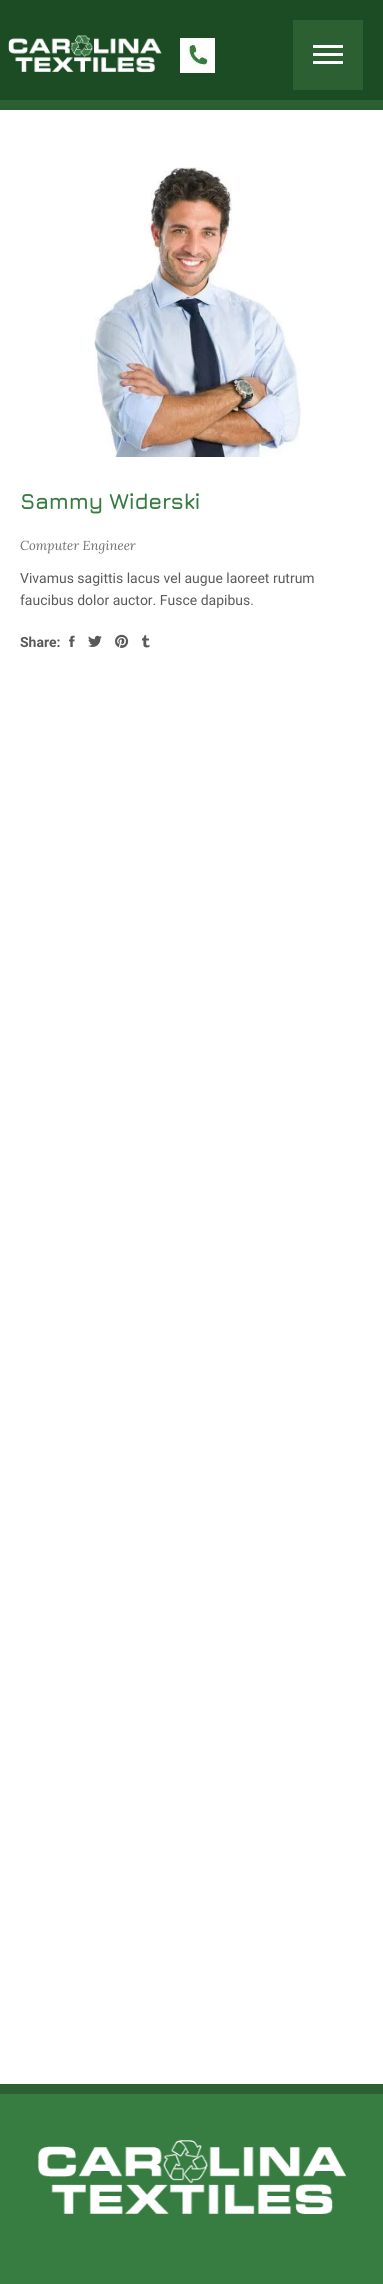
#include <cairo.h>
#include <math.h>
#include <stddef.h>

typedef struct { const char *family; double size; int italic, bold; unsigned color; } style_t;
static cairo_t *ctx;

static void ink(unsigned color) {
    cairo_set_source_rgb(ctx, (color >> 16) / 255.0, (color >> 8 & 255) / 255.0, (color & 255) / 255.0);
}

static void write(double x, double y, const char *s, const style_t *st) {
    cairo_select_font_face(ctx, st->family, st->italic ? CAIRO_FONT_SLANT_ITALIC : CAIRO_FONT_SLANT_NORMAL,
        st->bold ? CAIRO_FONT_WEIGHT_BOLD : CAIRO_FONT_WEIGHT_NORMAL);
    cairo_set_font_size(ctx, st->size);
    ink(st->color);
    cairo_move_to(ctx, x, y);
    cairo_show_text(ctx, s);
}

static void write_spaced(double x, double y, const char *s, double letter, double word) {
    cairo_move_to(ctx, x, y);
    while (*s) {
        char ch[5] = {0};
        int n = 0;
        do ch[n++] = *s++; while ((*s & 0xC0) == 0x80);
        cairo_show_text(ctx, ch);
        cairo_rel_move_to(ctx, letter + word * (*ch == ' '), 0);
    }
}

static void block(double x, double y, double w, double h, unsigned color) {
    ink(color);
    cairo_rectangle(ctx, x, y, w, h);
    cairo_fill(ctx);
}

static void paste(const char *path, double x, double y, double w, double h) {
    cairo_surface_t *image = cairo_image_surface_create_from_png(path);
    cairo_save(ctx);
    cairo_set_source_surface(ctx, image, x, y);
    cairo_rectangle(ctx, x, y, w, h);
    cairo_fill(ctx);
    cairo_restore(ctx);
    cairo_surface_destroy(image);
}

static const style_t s1 = {"Lora", 13, 1, 0, 0x707070};
static const style_t s2 = {"Roboto", 14, 0, 0, 0x595959};
static const style_t s3 = {"Roboto", 14, 0, 1, 0x595959};

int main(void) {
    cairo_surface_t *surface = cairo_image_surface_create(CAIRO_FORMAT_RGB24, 383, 2284);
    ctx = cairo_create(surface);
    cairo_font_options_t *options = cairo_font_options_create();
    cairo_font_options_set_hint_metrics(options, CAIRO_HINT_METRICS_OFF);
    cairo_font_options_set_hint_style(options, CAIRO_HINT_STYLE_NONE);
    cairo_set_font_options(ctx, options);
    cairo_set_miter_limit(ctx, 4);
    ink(0xffffff);
    cairo_paint(ctx);
    block(0, 0, 383, 100, 0x1c4c24);
    block(0, 100, 383, 10, 0x2c6032);
    paste("pic1.png", 8, 35, 154, 38);
    paste("pic2.png", 180, 38, 35, 35);
    block(293, 20, 70, 70, 0x2c6032);
    block(313, 53, 30, 3, 0xffffff);
    block(313, 45, 30, 3, 0xffffff);
    block(313, 61, 30, 3, 0xffffff);
    paste("pic3.png", 93, 167, 208, 290);
    cairo_select_font_face(ctx, "Jura", CAIRO_FONT_SLANT_NORMAL, CAIRO_FONT_WEIGHT_BOLD);
    cairo_set_font_size(ctx, 22);
    ink(0x377d42);
    write_spaced(20, 509, "Sammy Widerski", -0.5, 0);
    write(20, 550, "Computer Engineer", &s1);
    write(20, 583, "Vivamus sagittis lacus vel augue laoreet rutrum", &s2);
    write(20, 605, "faucibus dolor auctor. Fusce dapibus.", &s2);
    write(20, 647, "Share:", &s3);
    paste("pic4.png", 69, 635, 6, 12);
    paste("pic5.png", 88, 635, 14, 12);
    paste("pic6.png", 115, 634, 14, 14);
    paste("pic7.png", 142, 635, 8, 13);
    block(0, 2094, 383, 190, 0x377d42);
    block(0, 2084, 383, 10, 0x2c6032);
    paste("pic8.png", 37, 2140, 310, 74);
    cairo_surface_write_to_png(surface, "screenshot.png");
    cairo_font_options_destroy(options);
    cairo_destroy(ctx);
    cairo_surface_destroy(surface);
    return 0;
}
